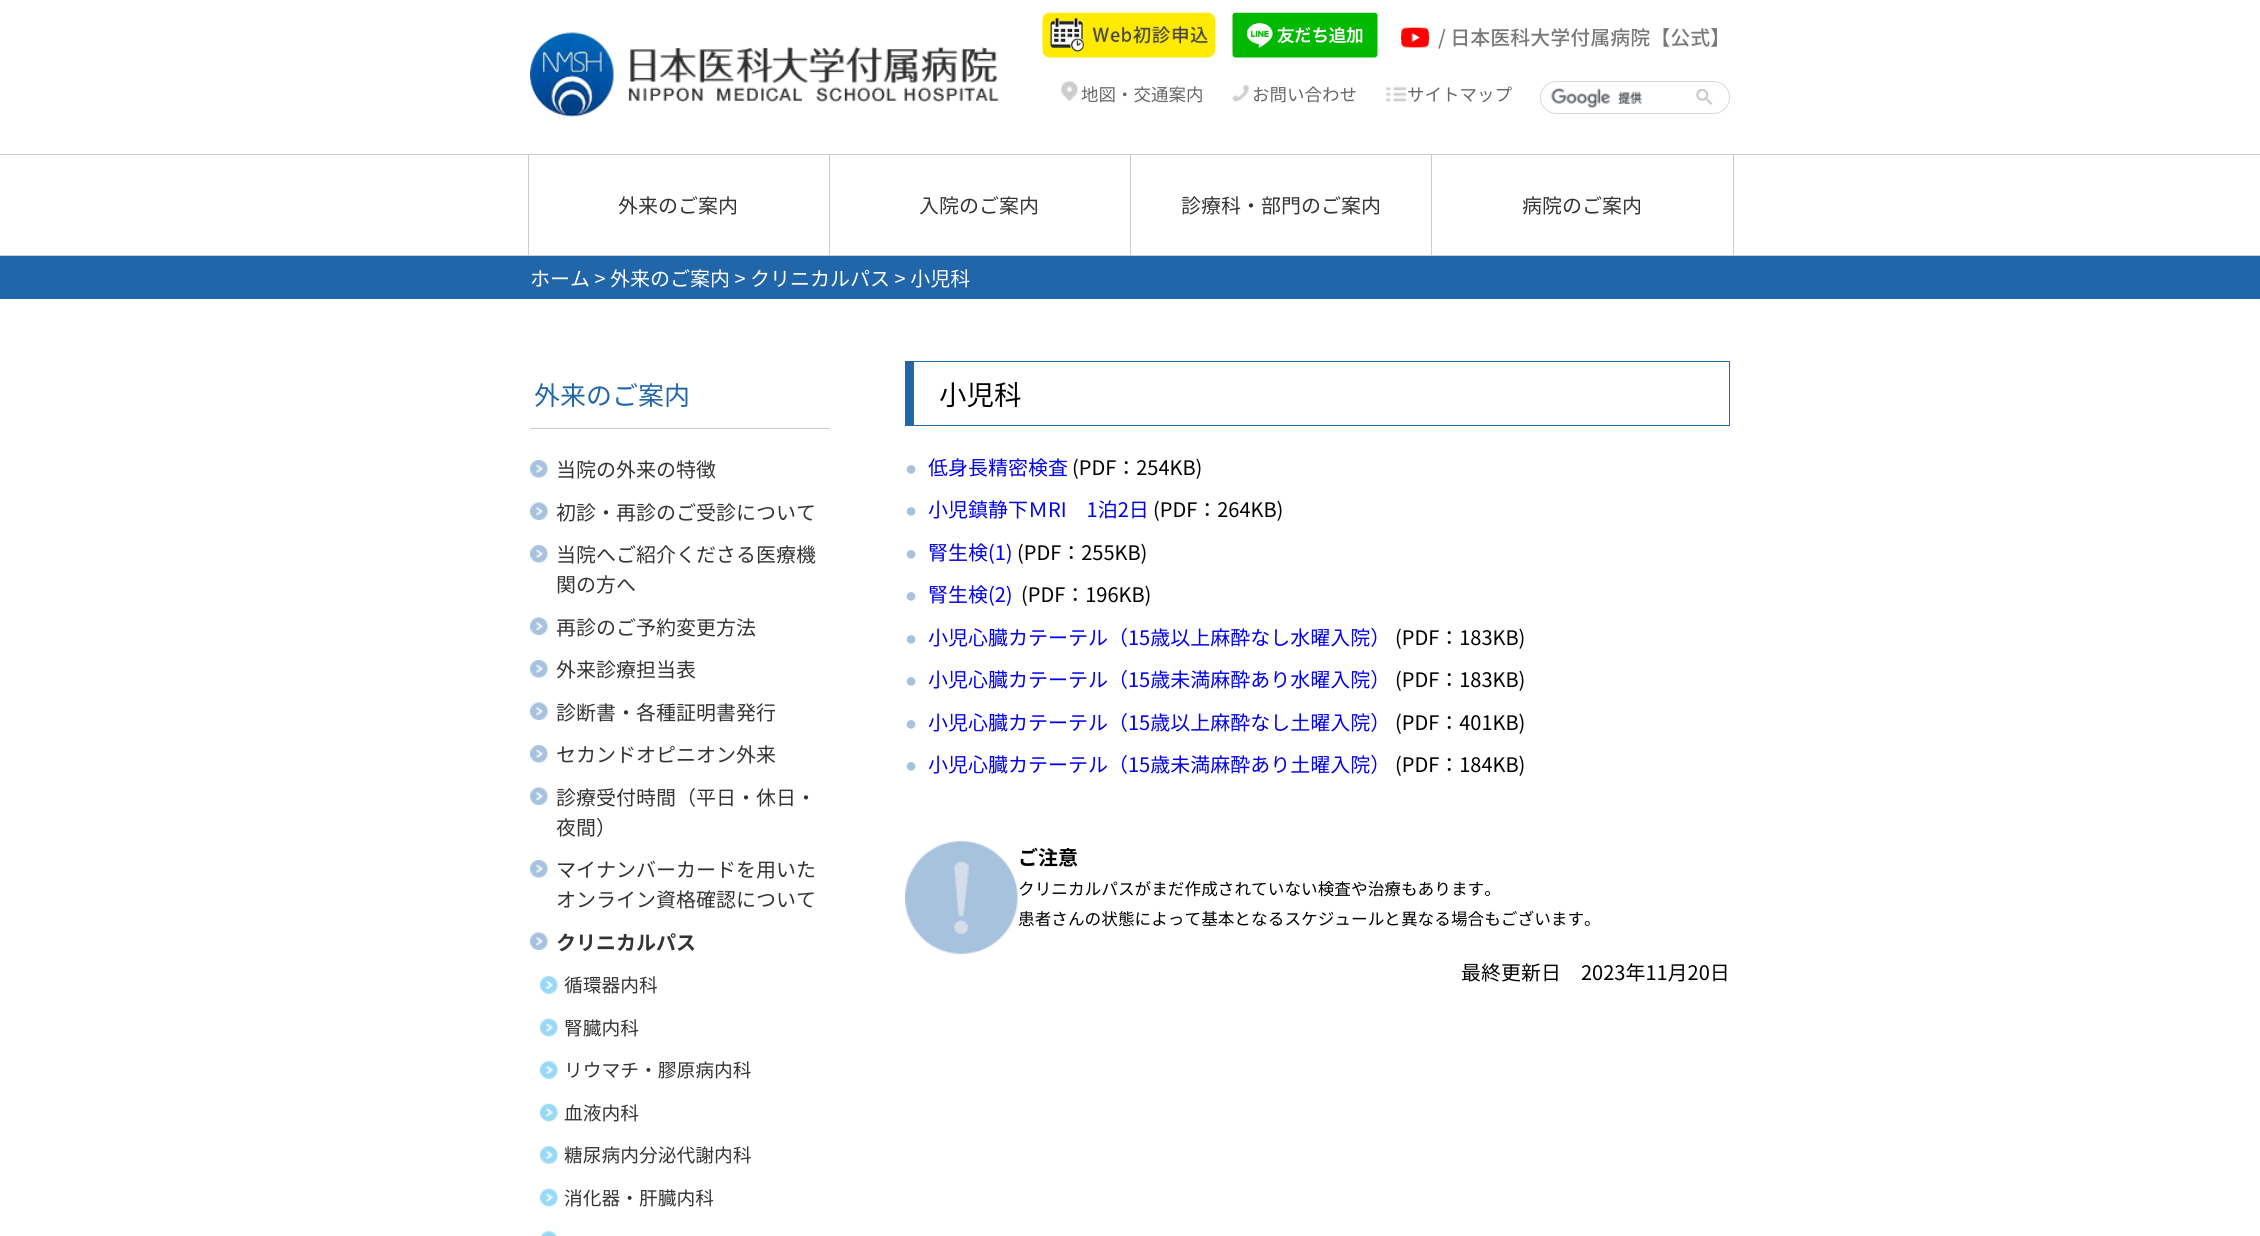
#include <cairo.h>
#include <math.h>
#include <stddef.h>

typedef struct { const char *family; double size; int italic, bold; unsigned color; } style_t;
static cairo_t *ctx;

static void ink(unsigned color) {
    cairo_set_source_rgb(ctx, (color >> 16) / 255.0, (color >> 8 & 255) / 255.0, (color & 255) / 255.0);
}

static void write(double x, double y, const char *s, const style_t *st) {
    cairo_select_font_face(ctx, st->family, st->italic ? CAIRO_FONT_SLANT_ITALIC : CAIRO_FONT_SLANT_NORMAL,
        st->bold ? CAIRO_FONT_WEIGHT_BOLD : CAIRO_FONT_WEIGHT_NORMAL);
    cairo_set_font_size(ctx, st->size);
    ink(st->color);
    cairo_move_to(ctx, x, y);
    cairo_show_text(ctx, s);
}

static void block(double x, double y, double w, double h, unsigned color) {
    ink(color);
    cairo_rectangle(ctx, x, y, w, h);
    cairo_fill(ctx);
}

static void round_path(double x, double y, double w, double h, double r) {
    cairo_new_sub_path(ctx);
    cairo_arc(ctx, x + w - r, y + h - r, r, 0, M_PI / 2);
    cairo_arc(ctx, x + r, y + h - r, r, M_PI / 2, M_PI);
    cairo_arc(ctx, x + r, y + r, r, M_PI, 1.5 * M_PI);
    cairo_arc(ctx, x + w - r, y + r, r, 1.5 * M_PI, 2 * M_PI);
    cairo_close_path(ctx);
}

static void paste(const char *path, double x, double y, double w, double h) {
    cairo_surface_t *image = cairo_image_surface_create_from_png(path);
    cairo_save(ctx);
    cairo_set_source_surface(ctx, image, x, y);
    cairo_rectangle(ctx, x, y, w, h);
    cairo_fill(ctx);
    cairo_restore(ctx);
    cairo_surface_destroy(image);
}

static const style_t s1 = {"Noto Sans JP", 17.5, 0, 0, 0x666666};
static const style_t s2 = {"Noto Sans JP Medium", 20, 0, 0, 0x797979};
static const style_t s3 = {"Noto Sans JP", 20, 0, 0, 0x333333};
static const style_t s4 = {"Noto Sans JP", 20, 0, 0, 0xffffff};
static const style_t s5 = {"Noto Sans JP", 26, 0, 0, 0x2266aa};
static const style_t s6 = {"Noto Sans JP", 20, 0, 1, 0x333333};
static const style_t s7 = {"Noto Sans JP", 18.75, 0, 0, 0x333333};
static const style_t s8 = {"Noto Sans JP", 27.5, 0, 0, 0x000000};
static const style_t s9 = {"Liberation Sans", 20, 0, 0, 0xa7c2dd};
static const style_t s10 = {"Noto Sans JP", 20, 0, 0, 0x0000ee};
static const style_t s11 = {"Noto Sans JP", 20, 0, 0, 0x000000};
static const style_t s12 = {"Noto Sans JP", 20, 0, 1, 0x000000};
static const style_t s13 = {"Noto Sans JP", 16.65, 0, 0, 0x000000};

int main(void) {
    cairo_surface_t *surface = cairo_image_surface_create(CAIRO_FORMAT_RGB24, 2260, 1236);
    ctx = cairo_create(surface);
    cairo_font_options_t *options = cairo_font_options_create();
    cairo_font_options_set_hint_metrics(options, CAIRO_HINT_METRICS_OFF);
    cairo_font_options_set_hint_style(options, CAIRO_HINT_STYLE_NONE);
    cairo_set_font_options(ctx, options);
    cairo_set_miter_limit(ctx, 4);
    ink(0xffffff);
    cairo_paint(ctx);
    paste("pic1.png", 530, 32, 469, 85);
    paste("pic2.png", 1061, 81, 17, 21);
    write(1081, 101, "地図・交通案内", &s1);
    paste("pic3.png", 1232, 85, 17, 17);
    write(1252, 101, "お問い合わせ", &s1);
    paste("pic4.png", 1386, 86, 21, 16);
    write(1407, 101, "サイトマップ", &s1);
    round_path(1540.5, 81.5, 189, 32, 16);
    ink(0xd8d9d9);
    cairo_set_line_width(ctx, 1);
    cairo_stroke(ctx);
    paste("pic5.png", 1551, 88, 92, 20);
    paste("pic6.png", 1696, 89, 17, 16);
    paste("pic7.png", 1042, 12, 173, 46);
    paste("pic8.png", 1232, 12, 146, 46);
    paste("pic9.png", 1401, 27, 28, 21);
    write(1438, 45, "/ 日本医科大学付属病院【公式】", &s2);
    block(0, 154, 2260, 1, 0xcccccc);
    block(0, 255, 2260, 1, 0xcccccc);
    block(528, 155, 1, 100, 0xcccccc);
    write(618, 213, "外来のご案内", &s3);
    block(829, 155, 1, 100, 0xcccccc);
    write(919, 213, "入院のご案内", &s3);
    block(1130, 155, 1, 100, 0xcccccc);
    write(1181, 213, "診療科・部門のご案内", &s3);
    block(1733, 155, 1, 100, 0xcccccc);
    block(1431, 155, 1, 100, 0xcccccc);
    write(1522, 213, "病院のご案内", &s3);
    block(0, 256, 2260, 43, 0x2266aa);
    write(530, 286, "ホーム > 外来のご案内 > クリニカルパス > 小児科", &s4);
    block(530, 428, 300, 1, 0xcccccc);
    write(534, 405, "外来のご案内", &s5);
    paste("pic10.png", 530, 460, 18, 18);
    write(556, 477, "当院の外来の特徴", &s3);
    paste("pic11.png", 530, 502, 18, 18);
    write(556, 520, "初診・再診のご受診について", &s3);
    paste("pic10.png", 530, 545, 18, 18);
    write(556, 562, "当院へご紹介くださる医療機", &s3);
    write(556, 592, "関の方へ", &s3);
    paste("pic11.png", 530, 617, 18, 18);
    write(556, 635, "再診のご予約変更方法", &s3);
    paste("pic10.png", 530, 660, 18, 18);
    write(556, 677, "外来診療担当表", &s3);
    paste("pic11.png", 530, 702, 18, 18);
    write(556, 720, "診断書・各種証明書発行", &s3);
    paste("pic10.png", 530, 745, 18, 18);
    write(556, 762, "セカンドオピニオン外来", &s3);
    paste("pic11.png", 530, 787, 18, 18);
    write(556, 805, "診療受付時間（平日・休日・", &s3);
    write(556, 835, "夜間）", &s3);
    paste("pic10.png", 530, 860, 18, 18);
    write(556, 877, "マイナンバーカードを用いた", &s3);
    write(556, 907, "オンライン資格確認について", &s3);
    paste("pic11.png", 530, 932, 18, 18);
    write(556, 950, "クリニカルパス", &s6);
    paste("pic12.png", 540, 976, 18, 18);
    write(564, 992, "循環器内科", &s7);
    paste("pic13.png", 540, 1018, 18, 19);
    write(564, 1035, "腎臓内科", &s7);
    paste("pic12.png", 540, 1061, 18, 18);
    write(564, 1077, "リウマチ・膠原病内科", &s7);
    paste("pic13.png", 540, 1103, 18, 19);
    write(564, 1120, "血液内科", &s7);
    paste("pic12.png", 540, 1146, 18, 18);
    write(564, 1162, "糖尿病内分泌代謝内科", &s7);
    paste("pic13.png", 540, 1188, 18, 19);
    write(564, 1205, "消化器・肝臓内科", &s7);
    paste("pic14.png", 540, 1231, 17, 5);
    block(914, 361, 816, 1, 0x2266aa);
    block(1729, 361, 1, 65, 0x2266aa);
    block(914, 425, 816, 1, 0x2266aa);
    block(905, 361, 9, 65, 0x2266aa);
    write(939, 405, "小児科", &s8);
    write(905, 475, "●", &s9);
    write(928, 475, "低身長精密検査", &s10);
    write(1072, 475, "(PDF：254KB)", &s11);
    write(905, 517, "●", &s9);
    write(928, 517, "小児鎮静下ＭRI　1泊2日", &s10);
    write(1153, 517, "(PDF：264KB)", &s11);
    write(905, 560, "●", &s9);
    write(928, 560, "腎生検(1)", &s10);
    write(1017, 560, "(PDF：255KB)", &s11);
    write(905, 602, "●", &s9);
    write(928, 602, "腎生検(2)", &s10);
    write(1021, 602, "(PDF：196KB)", &s11);
    write(905, 645, "●", &s9);
    write(928, 645, "小児心臓カテーテル（15歳以上麻酔なし水曜入院）", &s10);
    write(1395, 645, "(PDF：183KB)", &s11);
    write(905, 687, "●", &s9);
    write(928, 687, "小児心臓カテーテル（15歳未満麻酔あり水曜入院）", &s10);
    write(1395, 687, "(PDF：183KB)", &s11);
    write(905, 730, "●", &s9);
    write(928, 730, "小児心臓カテーテル（15歳以上麻酔なし土曜入院）", &s10);
    write(1395, 730, "(PDF：401KB)", &s11);
    write(905, 772, "●", &s9);
    write(928, 772, "小児心臓カテーテル（15歳未満麻酔あり土曜入院）", &s10);
    write(1395, 772, "(PDF：184KB)", &s11);
    paste("pic15.png", 905, 841, 113, 113);
    write(1018, 865, "ご注意", &s12);
    write(1018, 895, "クリニカルパスがまだ作成されていない検査や治療もあります。", &s13);
    write(1018, 925, "患者さんの状態によって基本となるスケジュールと異なる場合もございます。", &s13);
    write(1461, 980, "最終更新日　2023年11月20日", &s11);
    cairo_surface_write_to_png(surface, "screenshot.png");
    cairo_font_options_destroy(options);
    cairo_destroy(ctx);
    cairo_surface_destroy(surface);
    return 0;
}
